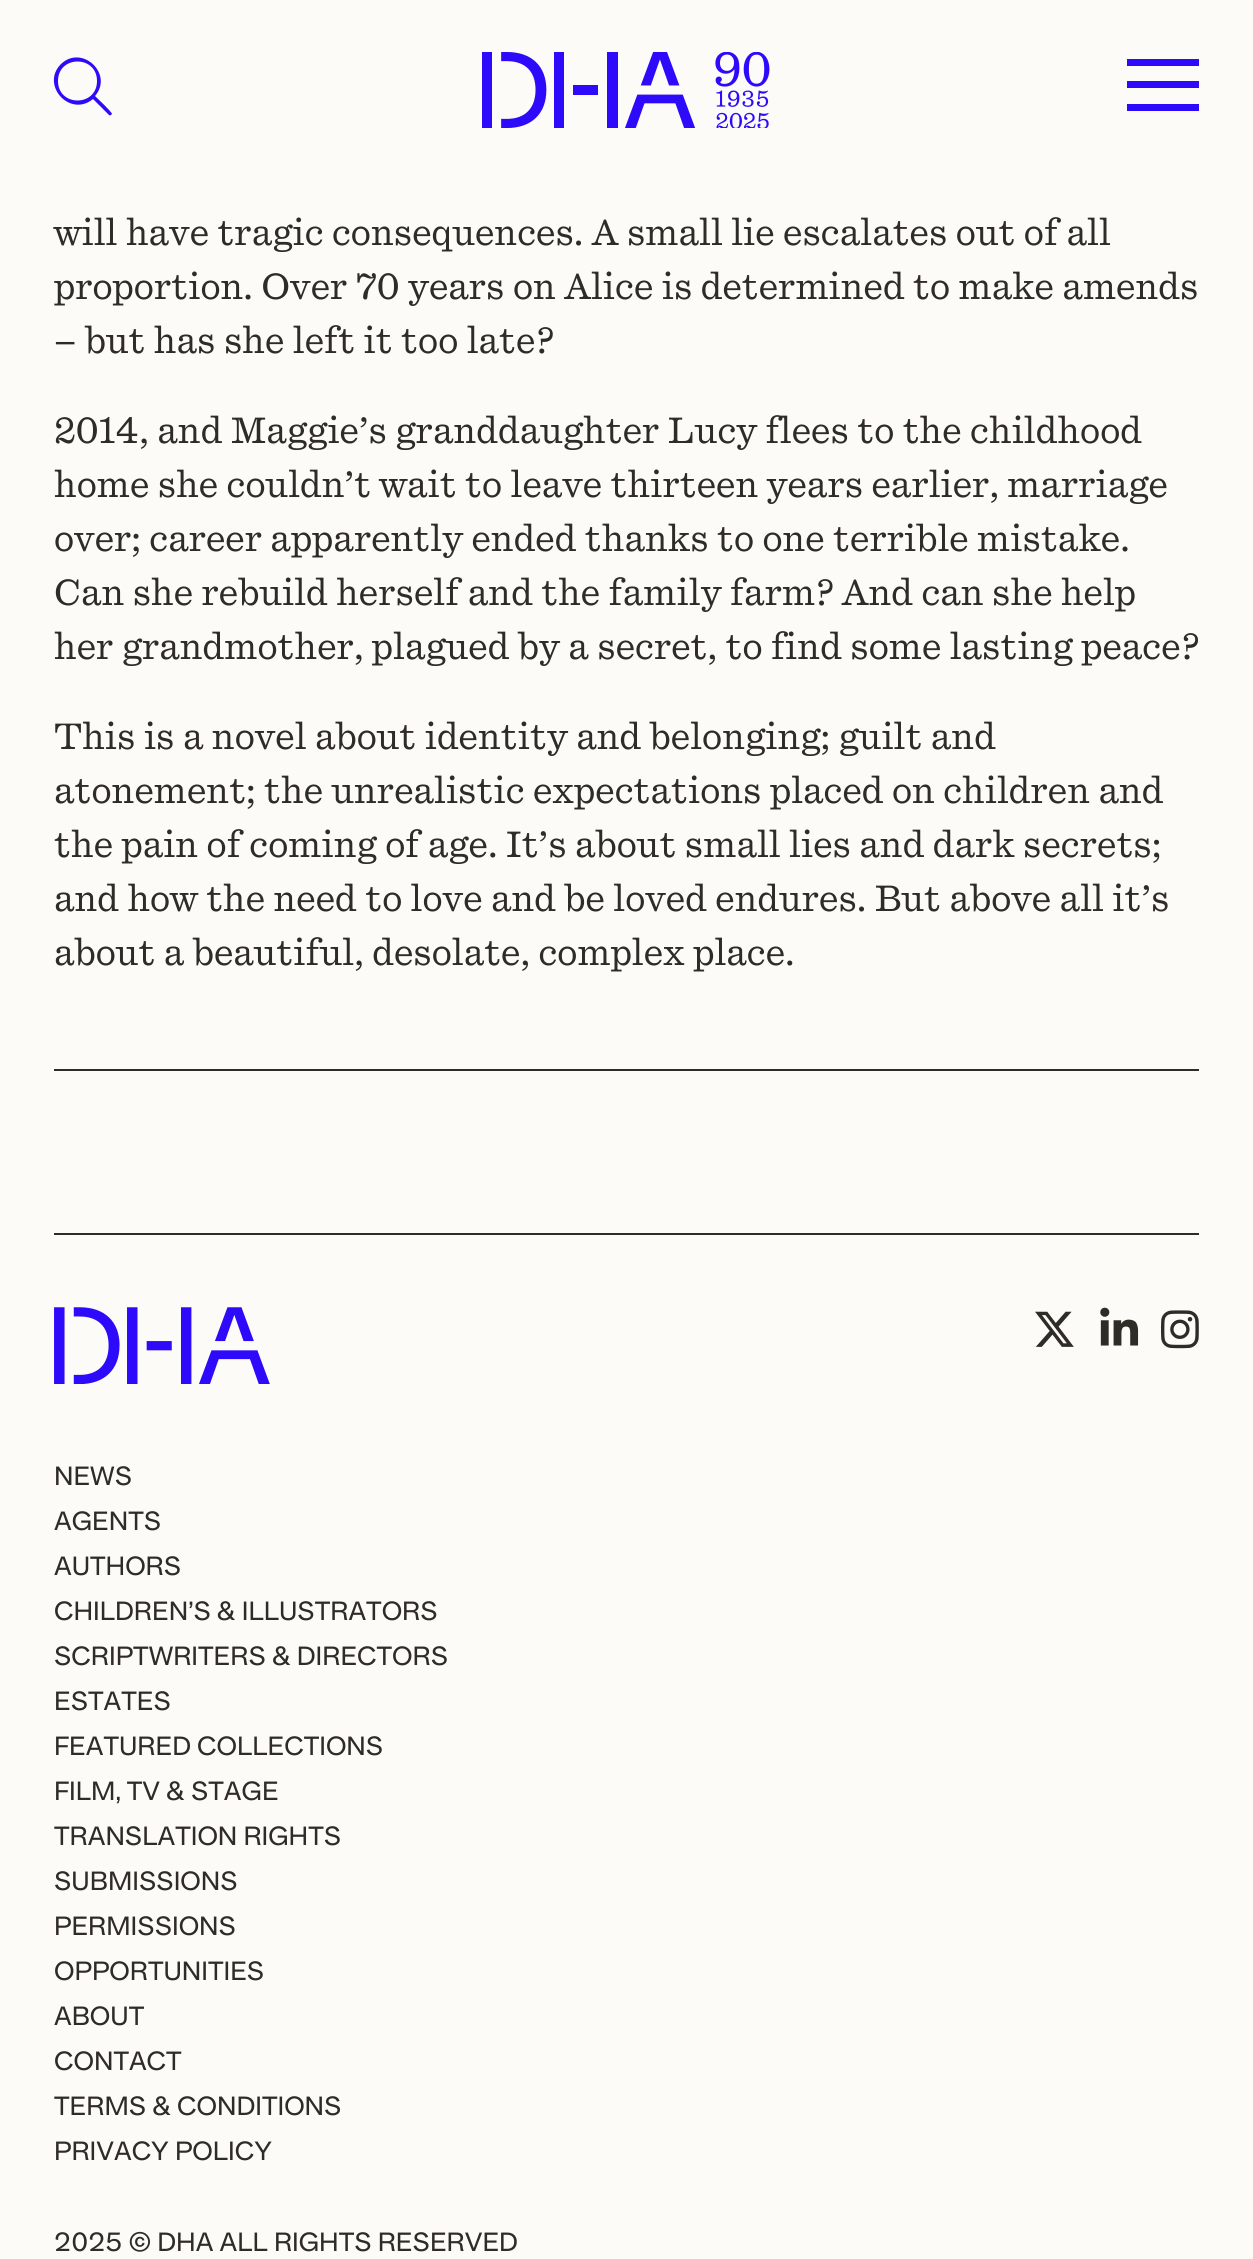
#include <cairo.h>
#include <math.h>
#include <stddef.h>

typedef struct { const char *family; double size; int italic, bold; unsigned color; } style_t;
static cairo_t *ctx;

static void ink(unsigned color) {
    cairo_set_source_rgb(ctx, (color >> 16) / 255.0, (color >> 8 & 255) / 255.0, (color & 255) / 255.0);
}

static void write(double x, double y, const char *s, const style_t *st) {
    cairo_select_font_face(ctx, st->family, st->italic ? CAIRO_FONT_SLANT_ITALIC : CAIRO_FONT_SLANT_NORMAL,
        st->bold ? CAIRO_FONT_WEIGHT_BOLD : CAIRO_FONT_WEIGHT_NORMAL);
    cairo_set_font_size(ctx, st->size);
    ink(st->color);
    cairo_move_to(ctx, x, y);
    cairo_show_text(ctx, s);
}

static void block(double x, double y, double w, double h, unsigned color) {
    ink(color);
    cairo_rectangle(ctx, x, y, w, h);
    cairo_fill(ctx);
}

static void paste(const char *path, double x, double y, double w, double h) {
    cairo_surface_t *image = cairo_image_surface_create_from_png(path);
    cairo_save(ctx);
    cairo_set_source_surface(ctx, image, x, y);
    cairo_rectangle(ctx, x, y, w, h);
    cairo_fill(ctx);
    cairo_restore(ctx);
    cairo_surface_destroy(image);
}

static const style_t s1 = {"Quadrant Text", 36, 0, 0, 0x2e2c26};
static const style_t s2 = {"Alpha", 25.25, 0, 0, 0x2e2c26};

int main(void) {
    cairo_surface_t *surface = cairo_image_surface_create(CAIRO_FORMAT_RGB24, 1253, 2259);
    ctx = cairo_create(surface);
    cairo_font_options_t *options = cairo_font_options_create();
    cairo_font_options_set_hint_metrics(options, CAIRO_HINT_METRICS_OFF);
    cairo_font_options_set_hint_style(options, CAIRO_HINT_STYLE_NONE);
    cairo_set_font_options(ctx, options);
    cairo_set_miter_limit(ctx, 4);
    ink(0xfdfbf7);
    cairo_paint(ctx);
    ink(0x2d0afa);
    cairo_new_path(ctx);
    cairo_move_to(ctx, 97, 81);
    cairo_curve_to(ctx, 97, 55, 58, 55, 58, 81);
    cairo_curve_to(ctx, 58, 107, 97, 107, 97, 81);
    cairo_close_path(ctx);
    cairo_move_to(ctx, 93, 99);
    cairo_curve_to(ctx, 70, 118, 40, 85, 61, 64);
    cairo_curve_to(ctx, 82, 44, 114, 74, 95, 96);
    cairo_curve_to(ctx, 97, 98, 112, 112, 112, 114);
    cairo_curve_to(ctx, 111, 115, 110, 116, 109, 115);
    cairo_close_path(ctx);
    cairo_fill(ctx);
    paste("pic1.png", 482, 52, 288, 76);
    block(1127, 81, 72, 7, 0x2d0afa);
    block(1127, 59, 72, 7, 0x2d0afa);
    block(1127, 104, 72, 7, 0x2d0afa);
    write(54, 245, "will have tragic consequences. A small lie escalates out of all", &s1);
    write(54, 299, "proportion. Over 70 years on Alice is determined to make amends", &s1);
    write(54, 353, "– but has she left it too late?", &s1);
    write(54, 443, "2014, and Maggie’s granddaughter Lucy flees to the childhood", &s1);
    write(54, 497, "home she couldn’t wait to leave thirteen years earlier, marriage", &s1);
    write(54, 551, "over; career apparently ended thanks to one terrible mistake.", &s1);
    write(54, 605, "Can she rebuild herself and the family farm? And can she help", &s1);
    write(54, 659, "her grandmother, plagued by a secret, to find some lasting peace?", &s1);
    write(54, 749, "This is a novel about identity and belonging; guilt and", &s1);
    write(54, 803, "atonement; the unrealistic expectations placed on children and", &s1);
    write(54, 857, "the pain of coming of age. It’s about small lies and dark secrets;", &s1);
    write(54, 911, "and how the need to love and be loved endures. But above all it’s", &s1);
    write(54, 965, "about a beautiful, desolate, complex place.", &s1);
    block(54, 1069, 1145, 2, 0x2e2c26);
    block(54, 1233, 1145, 2, 0x2e2c26);
    paste("pic2.png", 54, 1307, 216, 77);
    paste("pic3.png", 1035, 1311, 39, 36);
    paste("pic4.png", 1100, 1307, 39, 39);
    paste("pic5.png", 1161, 1310, 38, 39);
    write(54, 1485, "NEWS", &s2);
    write(54, 1530, "AGENTS", &s2);
    write(54, 1575, "AUTHORS", &s2);
    write(54, 1620, "CHILDREN’S & ILLUSTRATORS", &s2);
    write(54, 1665, "SCRIPTWRITERS & DIRECTORS", &s2);
    write(54, 1710, "ESTATES", &s2);
    write(54, 1755, "FEATURED COLLECTIONS", &s2);
    write(54, 1800, "FILM, TV & STAGE", &s2);
    write(54, 1845, "TRANSLATION RIGHTS", &s2);
    write(54, 1890, "SUBMISSIONS", &s2);
    write(54, 1935, "PERMISSIONS", &s2);
    write(54, 1980, "OPPORTUNITIES", &s2);
    write(54, 2025, "ABOUT", &s2);
    write(54, 2070, "CONTACT", &s2);
    write(54, 2115, "TERMS & CONDITIONS", &s2);
    write(54, 2160, "PRIVACY POLICY", &s2);
    write(54, 2251, "2025 © DHA ALL RIGHTS RESERVED", &s2);
    cairo_surface_write_to_png(surface, "screenshot.png");
    cairo_font_options_destroy(options);
    cairo_destroy(ctx);
    cairo_surface_destroy(surface);
    return 0;
}
